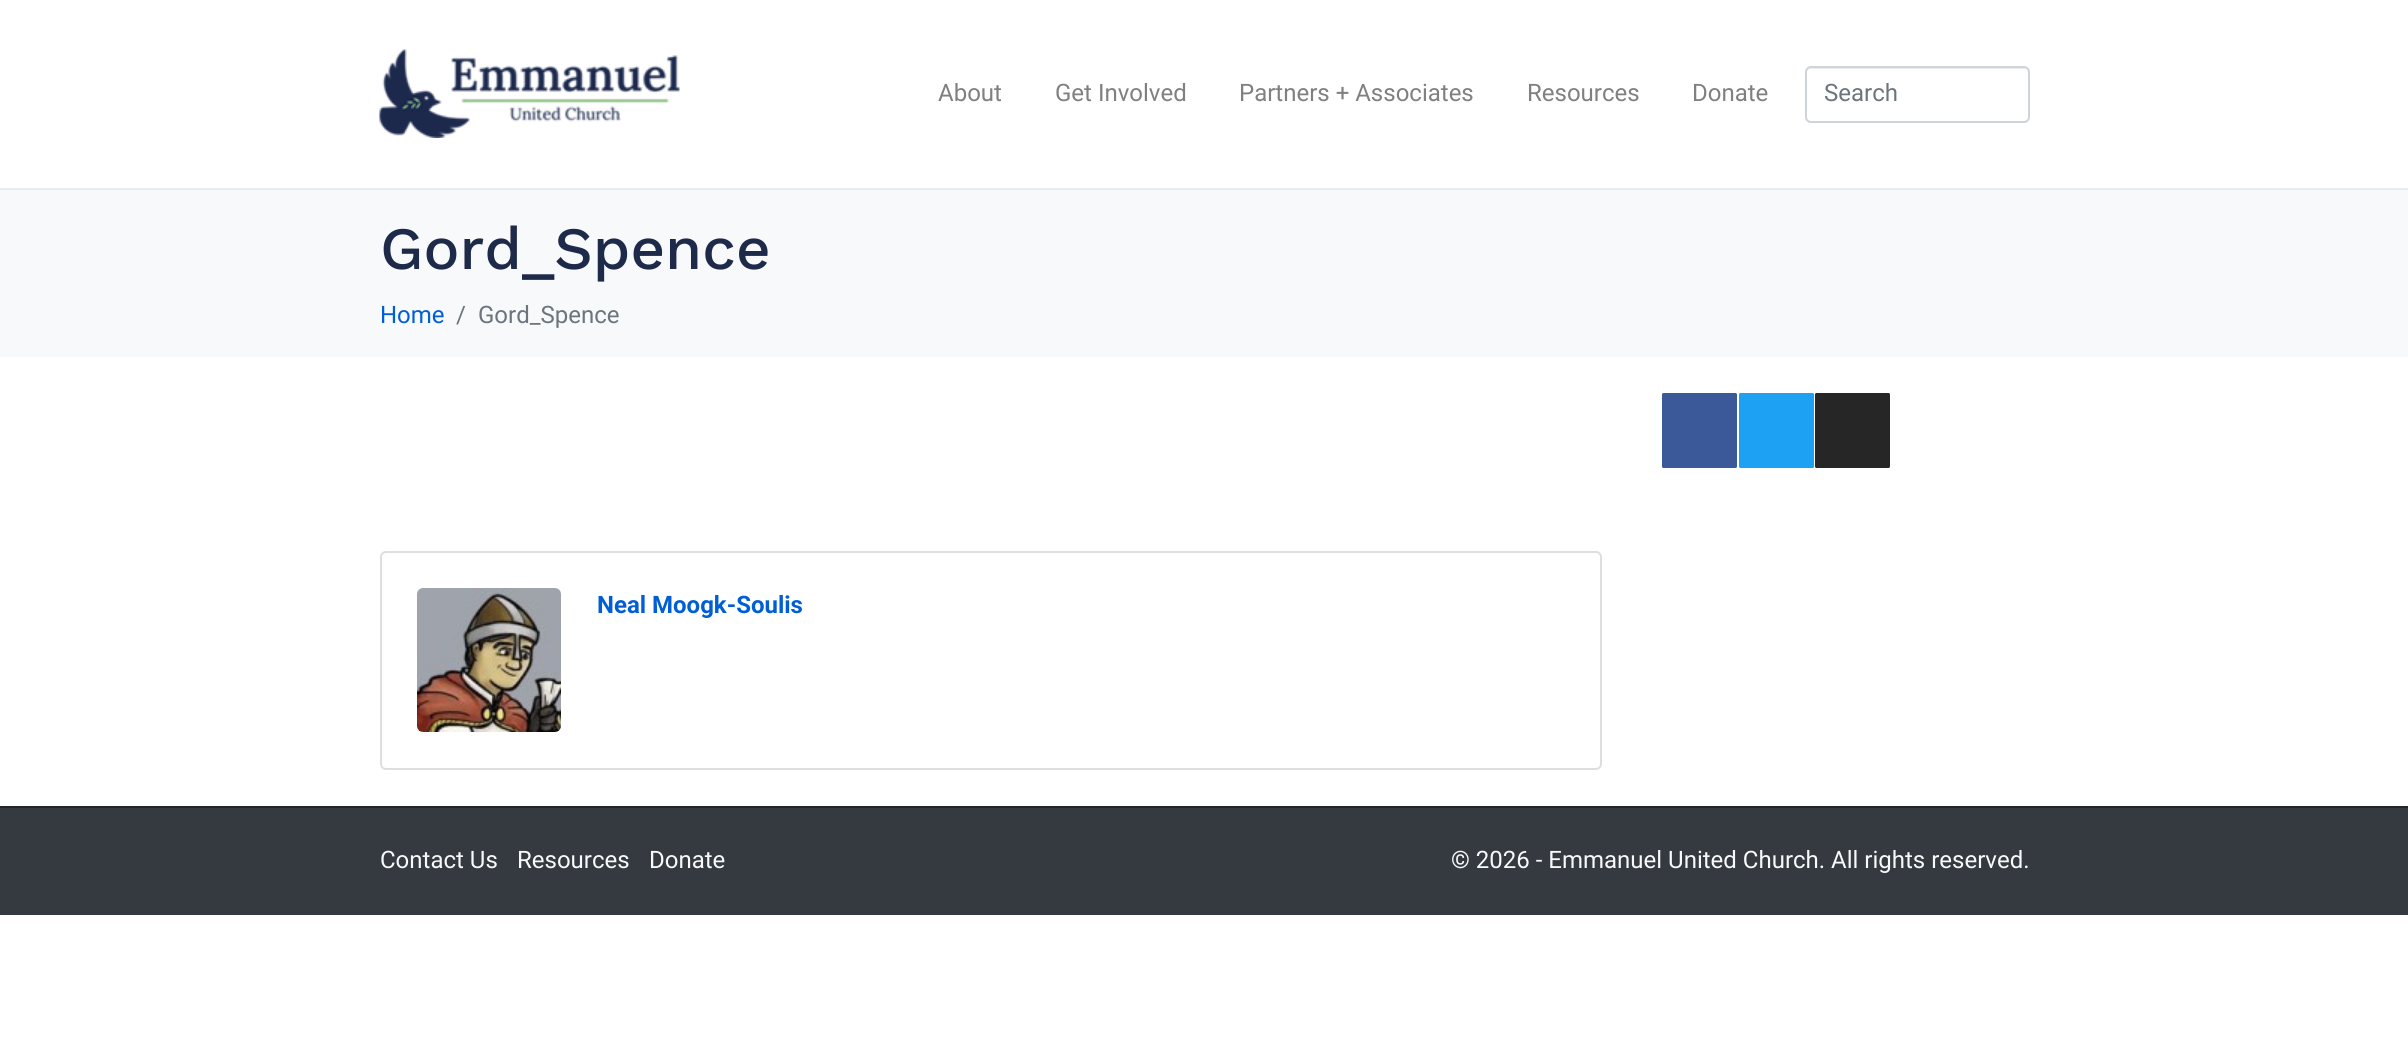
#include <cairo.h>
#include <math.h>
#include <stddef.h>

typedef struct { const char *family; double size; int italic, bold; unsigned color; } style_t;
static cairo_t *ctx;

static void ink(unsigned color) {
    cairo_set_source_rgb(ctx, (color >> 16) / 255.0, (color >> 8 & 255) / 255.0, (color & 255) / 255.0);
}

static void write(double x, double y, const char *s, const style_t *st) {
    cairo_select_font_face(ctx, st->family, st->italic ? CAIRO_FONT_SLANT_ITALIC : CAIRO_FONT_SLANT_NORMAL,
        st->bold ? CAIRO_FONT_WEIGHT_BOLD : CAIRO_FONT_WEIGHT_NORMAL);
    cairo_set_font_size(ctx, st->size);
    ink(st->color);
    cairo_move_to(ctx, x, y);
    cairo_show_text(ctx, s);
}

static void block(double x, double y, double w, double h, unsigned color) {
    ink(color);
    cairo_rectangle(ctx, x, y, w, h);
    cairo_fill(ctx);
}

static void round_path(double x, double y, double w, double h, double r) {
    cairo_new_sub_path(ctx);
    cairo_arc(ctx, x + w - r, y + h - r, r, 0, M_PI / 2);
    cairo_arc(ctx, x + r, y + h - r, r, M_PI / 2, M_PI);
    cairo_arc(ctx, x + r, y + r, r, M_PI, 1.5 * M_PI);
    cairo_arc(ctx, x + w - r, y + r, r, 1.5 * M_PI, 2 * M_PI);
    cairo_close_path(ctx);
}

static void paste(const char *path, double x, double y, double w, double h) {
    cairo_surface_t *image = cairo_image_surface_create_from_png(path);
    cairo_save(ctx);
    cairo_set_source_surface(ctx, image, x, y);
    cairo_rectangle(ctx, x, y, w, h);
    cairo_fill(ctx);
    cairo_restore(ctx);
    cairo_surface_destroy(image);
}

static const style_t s1 = {"Roboto", 24, 0, 0, 0x808080};
static const style_t s2 = {"Roboto", 24, 0, 0, 0x6c757d};
static const style_t s3 = {"Work Sans Medium", 60, 0, 0, 0x1e2a4a};
static const style_t s4 = {"Roboto", 24, 0, 0, 0x015fd5};
static const style_t s5 = {"Roboto", 24, 0, 1, 0x015fd5};
static const style_t s6 = {"Roboto", 24, 0, 0, 0xf8f9fa};

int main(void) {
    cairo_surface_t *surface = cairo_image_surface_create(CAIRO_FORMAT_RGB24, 2408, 1047);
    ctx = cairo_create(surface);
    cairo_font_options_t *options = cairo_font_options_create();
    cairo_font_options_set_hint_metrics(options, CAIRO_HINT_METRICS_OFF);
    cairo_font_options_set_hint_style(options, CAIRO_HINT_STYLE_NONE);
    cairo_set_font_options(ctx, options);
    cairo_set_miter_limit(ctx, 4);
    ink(0xffffff);
    cairo_paint(ctx);
    block(0, 188, 2408, 2, 0xe9ecef);
    paste("pic1.png", 379, 49, 301, 89);
    write(938, 101, "About", &s1);
    write(1055, 101, "Get Involved", &s1);
    write(1239, 101, "Partners + Associates", &s1);
    write(1527, 101, "Resources", &s1);
    write(1692, 101, "Donate", &s1);
    ink(0xececec);
    cairo_new_path(ctx);
    cairo_move_to(ctx, 1810, 69);
    cairo_line_to(ctx, 2024, 69);
    cairo_curve_to(ctx, 2026, 69, 2028, 71, 2028, 74);
    cairo_line_to(ctx, 2028, 73);
    cairo_curve_to(ctx, 2028, 70, 2026, 68, 2023, 68);
    cairo_line_to(ctx, 1811, 68);
    cairo_curve_to(ctx, 1808, 68, 1806, 70, 1806, 73);
    cairo_line_to(ctx, 1806, 74);
    cairo_curve_to(ctx, 1806, 71, 1808, 69, 1810, 69);
    cairo_close_path(ctx);
    cairo_fill(ctx);
    round_path(1806, 67, 223, 55, 5);
    ink(0xced4da);
    cairo_stroke(ctx);
    write(1824, 101, "Search", &s2);
    block(0, 190, 2408, 167, 0xf8f9fa);
    write(380, 269, "Gord_Spence", &s3);
    write(380, 323, "Home", &s4);
    write(456, 323, "/", &s2);
    write(478, 323, "Gord_Spence", &s2);
    ink(0x3b5998);
    round_path(1662, 393, 75, 75, 1.5);
    cairo_fill(ctx);
    ink(0x1da1f2);
    round_path(1739, 393, 75, 75, 1.5);
    cairo_fill(ctx);
    ink(0x262626);
    round_path(1815, 393, 75, 75, 1.5);
    cairo_fill(ctx);
    round_path(381, 552, 1220, 217, 5);
    ink(0xdedede);
    cairo_stroke(ctx);
    paste("pic2.png", 417, 588, 144, 144);
    write(597, 613, "Neal Moogk-Soulis", &s5);
    block(0, 808, 2408, 107, 0x343a40);
    block(0, 806, 2408, 2, 0x212529);
    write(380, 868, "Contact Us", &s6);
    write(517, 868, "Resources", &s6);
    write(649, 868, "Donate", &s6);
    write(1451, 868, "© 2026 - Emmanuel United Church. All rights reserved.", &s6);
    cairo_surface_write_to_png(surface, "screenshot.png");
    cairo_font_options_destroy(options);
    cairo_destroy(ctx);
    cairo_surface_destroy(surface);
    return 0;
}
